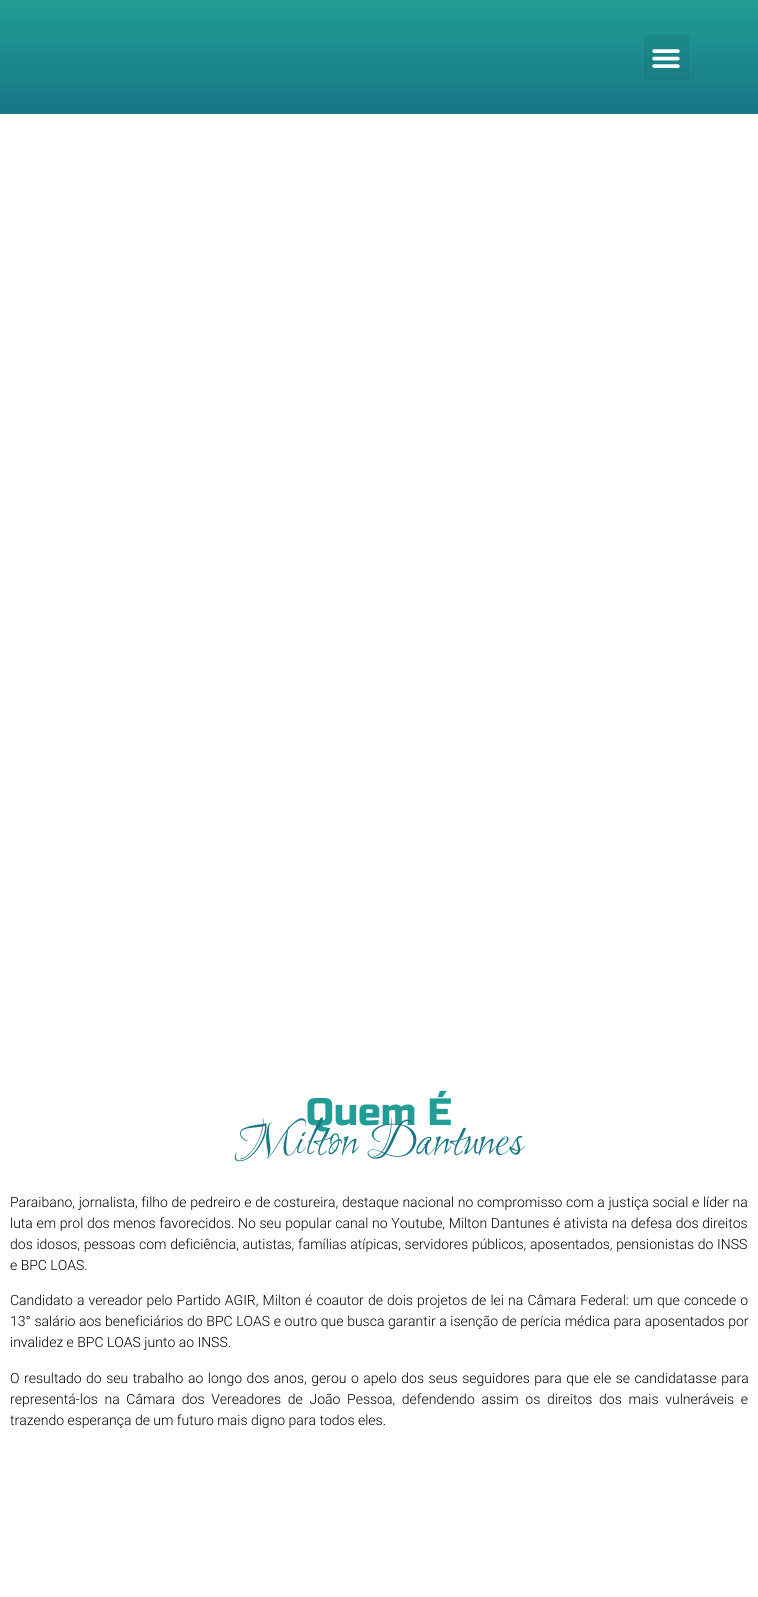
#include <cairo.h>
#include <math.h>
#include <stddef.h>

typedef struct { const char *family; double size; int italic, bold; unsigned color; } style_t;
static cairo_t *ctx;

static void ink(unsigned color) {
    cairo_set_source_rgb(ctx, (color >> 16) / 255.0, (color >> 8 & 255) / 255.0, (color & 255) / 255.0);
}

static void write(double x, double y, const char *s, const style_t *st) {
    cairo_select_font_face(ctx, st->family, st->italic ? CAIRO_FONT_SLANT_ITALIC : CAIRO_FONT_SLANT_NORMAL,
        st->bold ? CAIRO_FONT_WEIGHT_BOLD : CAIRO_FONT_WEIGHT_NORMAL);
    cairo_set_font_size(ctx, st->size);
    ink(st->color);
    cairo_move_to(ctx, x, y);
    cairo_show_text(ctx, s);
}

static void write_spaced(double x, double y, const char *s, double letter, double word) {
    cairo_move_to(ctx, x, y);
    while (*s) {
        char ch[5] = {0};
        int n = 0;
        do ch[n++] = *s++; while ((*s & 0xC0) == 0x80);
        cairo_show_text(ctx, ch);
        cairo_rel_move_to(ctx, letter + word * (*ch == ' '), 0);
    }
}

static void paste(const char *path, double x, double y, double w, double h) {
    cairo_surface_t *image = cairo_image_surface_create_from_png(path);
    cairo_save(ctx);
    cairo_set_source_surface(ctx, image, x, y);
    cairo_rectangle(ctx, x, y, w, h);
    cairo_fill(ctx);
    cairo_restore(ctx);
    cairo_surface_destroy(image);
}

static const style_t s1 = {"Russo One", 38, 0, 0, 0x219d95};
static const style_t s2 = {"Ruthie", 53, 0, 0, 0x177787};
static const style_t s3 = {"Roboto Light", 14, 0, 0, 0x000000};

int main(void) {
    cairo_surface_t *surface = cairo_image_surface_create(CAIRO_FORMAT_RGB24, 758, 1597);
    ctx = cairo_create(surface);
    cairo_font_options_t *options = cairo_font_options_create();
    cairo_font_options_set_hint_metrics(options, CAIRO_HINT_METRICS_OFF);
    cairo_font_options_set_hint_style(options, CAIRO_HINT_STYLE_NONE);
    cairo_set_font_options(ctx, options);
    cairo_set_miter_limit(ctx, 4);
    cairo_pattern_t *gradient;
    ink(0xffffff);
    cairo_paint(ctx);
    gradient = cairo_pattern_create_linear(379, 0, 379, 114);
    cairo_pattern_add_color_stop_rgba(gradient, 0, 0.129, 0.616, 0.584, 1);
    cairo_pattern_add_color_stop_rgba(gradient, 1, 0.09, 0.467, 0.529, 1);
    cairo_set_source(ctx, gradient);
    cairo_pattern_destroy(gradient);
    cairo_rectangle(ctx, 0, 0, 758, 114);
    cairo_fill(ctx);
    gradient = cairo_pattern_create_linear(379, 0, 379, 114);
    cairo_pattern_add_color_stop_rgba(gradient, 0, 0.122, 0.584, 0.557, 1);
    cairo_pattern_add_color_stop_rgba(gradient, 1, 0.086, 0.443, 0.502, 1);
    cairo_set_source(ctx, gradient);
    cairo_pattern_destroy(gradient);
    cairo_rectangle(ctx, 644, 35, 45, 45);
    cairo_fill(ctx);
    paste("pic1.png", 652, 49, 28, 19);
    write(306, 1125, "Quem É", &s1);
    write(235, 1154, "Milton Dantunes", &s2);
    cairo_select_font_face(ctx, "Roboto Light", CAIRO_FONT_SLANT_NORMAL, CAIRO_FONT_WEIGHT_NORMAL);
    cairo_set_font_size(ctx, 14);
    ink(0x000000);
    write_spaced(10, 1207, "Paraibano, jornalista, filho de pedreiro e de costureira, destaque nacional no compromisso com a justiça social e líder na", 0, 0.25);
    write_spaced(10, 1228, "luta em prol dos menos favorecidos. No seu popular canal no Youtube, Milton Dantunes é ativista na defesa dos direitos", 0, 0.25);
    write_spaced(10, 1249, "dos idosos, pessoas com deficiência, autistas, famílias atípicas, servidores públicos, aposentados, pensionistas do INSS", 0, 0.3);
    write(10, 1270, "e BPC LOAS.", &s3);
    write_spaced(10, 1305, "Candidato a vereador pelo Partido AGIR, Milton é coautor de dois projetos de lei na Câmara Federal: um que concede o", 0, 0.7);
    write_spaced(10, 1326, "13° salário aos beneficiários do BPC LOAS e outro que busca garantir a isenção de perícia médica para aposentados por", 0, 0.2);
    write(10, 1347, "invalidez e BPC LOAS junto ao INSS.", &s3);
    write_spaced(10, 1383, "O resultado do seu trabalho ao longo dos anos, gerou o apelo dos seus seguidores para que ele se candidatasse para", 0, 1.1);
    write_spaced(10, 1404, "representá-los na Câmara dos Vereadores de João Pessoa, defendendo assim os direitos dos mais vulneráveis e", 0, 3.25);
    write(10, 1425, "trazendo esperança de um futuro mais digno para todos eles.", &s3);
    cairo_surface_write_to_png(surface, "screenshot.png");
    cairo_font_options_destroy(options);
    cairo_destroy(ctx);
    cairo_surface_destroy(surface);
    return 0;
}
